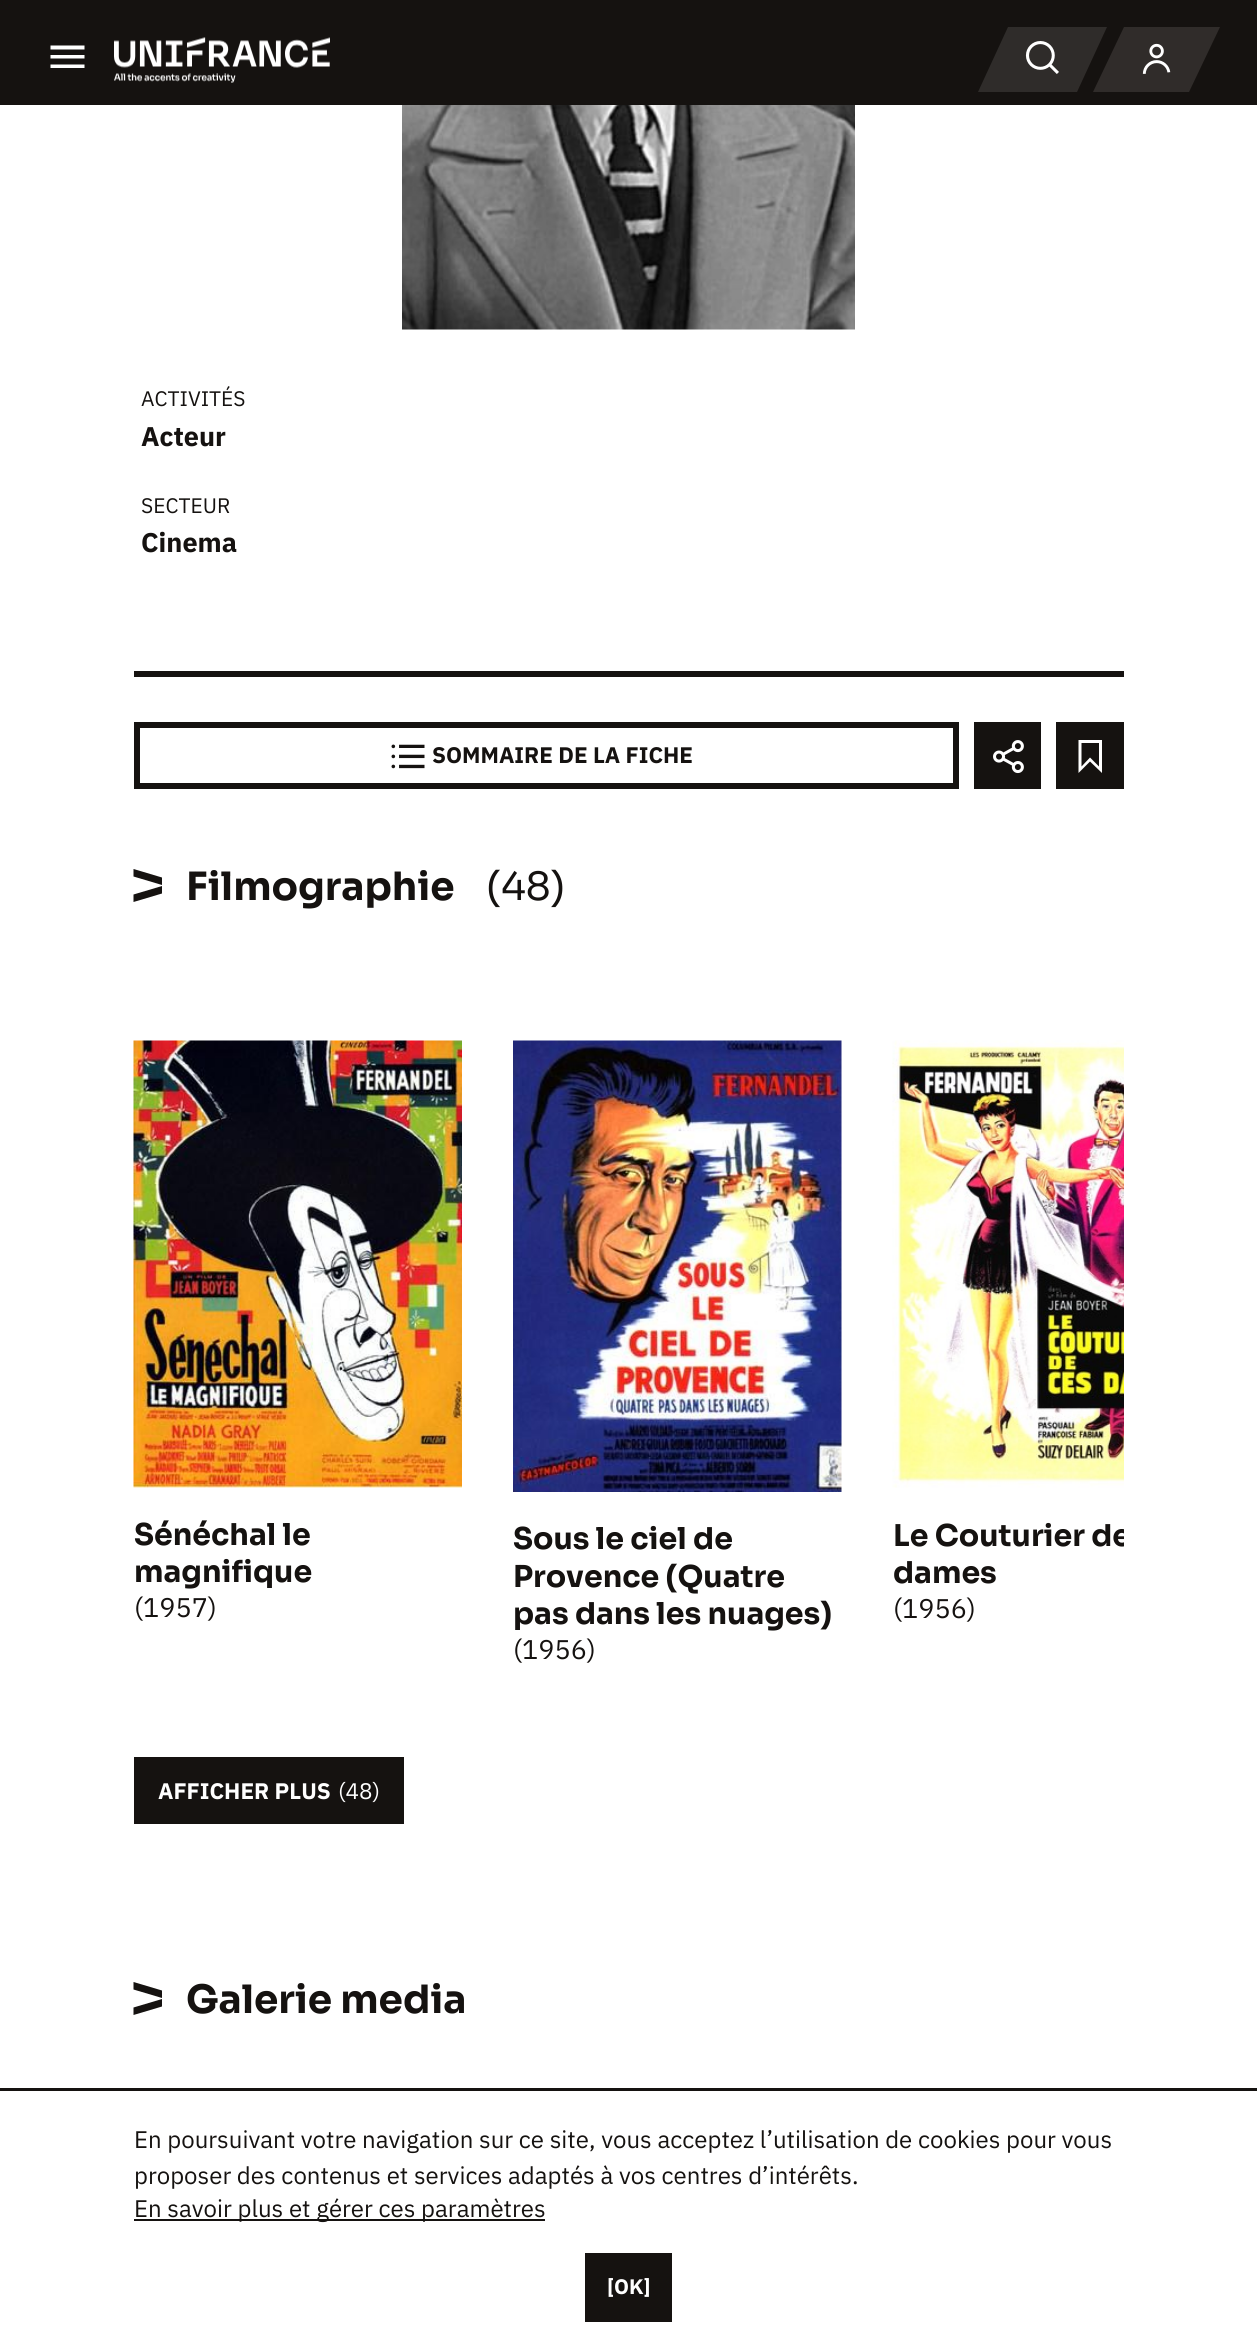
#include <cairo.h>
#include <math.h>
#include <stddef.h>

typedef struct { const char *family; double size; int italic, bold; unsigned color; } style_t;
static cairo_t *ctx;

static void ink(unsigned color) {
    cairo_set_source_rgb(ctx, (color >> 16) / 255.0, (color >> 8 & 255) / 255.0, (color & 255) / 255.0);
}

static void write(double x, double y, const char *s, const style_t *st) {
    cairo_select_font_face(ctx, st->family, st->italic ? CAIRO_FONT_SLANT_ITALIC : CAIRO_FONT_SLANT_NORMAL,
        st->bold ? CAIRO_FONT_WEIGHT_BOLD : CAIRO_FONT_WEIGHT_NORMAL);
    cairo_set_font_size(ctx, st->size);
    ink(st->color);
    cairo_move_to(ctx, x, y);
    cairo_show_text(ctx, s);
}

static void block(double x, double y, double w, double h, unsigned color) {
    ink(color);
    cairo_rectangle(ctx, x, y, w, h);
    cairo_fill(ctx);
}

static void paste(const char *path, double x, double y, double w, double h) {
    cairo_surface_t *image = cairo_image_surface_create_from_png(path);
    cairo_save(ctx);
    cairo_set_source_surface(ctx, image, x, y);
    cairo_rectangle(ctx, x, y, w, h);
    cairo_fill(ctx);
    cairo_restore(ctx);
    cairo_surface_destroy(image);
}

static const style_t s1 = {"IBM Plex Sans", 21, 0, 0, 0x151210};
static const style_t s2 = {"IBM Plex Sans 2", 27, 0, 1, 0x151210};
static const style_t s3 = {"IBM Plex Sans", 22.5, 0, 1, 0x151210};
static const style_t s4 = {"Sora", 39, 0, 1, 0x151210};
static const style_t s5 = {"Sora", 39, 0, 0, 0x151210};
static const style_t s6 = {"Sora", 30, 0, 1, 0x151210};
static const style_t s7 = {"IBM Plex Sans", 27, 0, 0, 0x151210};
static const style_t s8 = {"IBM Plex Sans", 22.5, 0, 1, 0xffffff};
static const style_t s9 = {"IBM Plex Sans", 22.5, 0, 0, 0xffffff};
static const style_t s10 = {"IBM Plex Sans", 24, 0, 0, 0x151210};
static const style_t s11 = {"IBM Plex Sans", 21, 0, 1, 0xffffff};

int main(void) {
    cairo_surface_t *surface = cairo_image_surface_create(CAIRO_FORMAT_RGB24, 1257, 2337);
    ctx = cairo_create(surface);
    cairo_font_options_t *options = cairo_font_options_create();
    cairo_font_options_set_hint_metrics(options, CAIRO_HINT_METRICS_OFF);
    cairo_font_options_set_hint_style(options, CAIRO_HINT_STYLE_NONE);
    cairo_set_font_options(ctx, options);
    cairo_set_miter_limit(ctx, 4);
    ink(0xffffff);
    cairo_paint(ctx);
    block(0, 0, 1257, 105, 0x151210);
    ink(0xffffff);
    cairo_new_path(ctx);
    cairo_move_to(ctx, 50.5, 45.5);
    cairo_line_to(ctx, 84.5, 45.5);
    cairo_line_to(ctx, 84.5, 49.5);
    cairo_line_to(ctx, 50.5, 49.5);
    cairo_close_path(ctx);
    cairo_move_to(ctx, 50.5, 58.5);
    cairo_line_to(ctx, 50.5, 55);
    cairo_line_to(ctx, 84.5, 55);
    cairo_line_to(ctx, 84.5, 58.5);
    cairo_close_path(ctx);
    cairo_move_to(ctx, 50.5, 68);
    cairo_line_to(ctx, 50.5, 64.5);
    cairo_line_to(ctx, 84.5, 64.5);
    cairo_line_to(ctx, 84.5, 68);
    cairo_close_path(ctx);
    cairo_fill(ctx);
    paste("pic1.png", 114, 37, 216, 46);
    ink(0x302c2a);
    cairo_new_path(ctx);
    cairo_move_to(ctx, 1124, 27);
    cairo_line_to(ctx, 1220, 27);
    cairo_line_to(ctx, 1189, 92);
    cairo_line_to(ctx, 1093, 92);
    cairo_close_path(ctx);
    cairo_fill(ctx);
    ink(0x2f2c2a);
    cairo_new_path(ctx);
    cairo_move_to(ctx, 1008, 27);
    cairo_line_to(ctx, 1107, 27);
    cairo_line_to(ctx, 1077, 92);
    cairo_line_to(ctx, 978, 92);
    cairo_close_path(ctx);
    cairo_fill(ctx);
    paste("pic2.png", 1025, 41, 34, 33);
    paste("pic3.png", 1142, 43, 29, 31);
    block(134, 671, 990, 6, 0x151210);
    paste("pic4.png", 402, 105, 453, 225);
    write(141, 406, "ACTIVITÉS", &s1);
    write(141, 446, "Acteur", &s2);
    write(141, 513, "SECTEUR", &s1);
    write(141, 552, "Cinema", &s2);
    cairo_rectangle(ctx, 137, 725, 819, 61);
    cairo_set_line_width(ctx, 6);
    cairo_stroke(ctx);
    paste("pic5.png", 391, 744, 34, 25);
    write(432, 763, "SOMMAIRE DE LA FICHE", &s3);
    block(974, 722, 67, 67, 0x151210);
    paste("pic6.png", 993, 740, 31, 34);
    block(1056, 722, 68, 67, 0x151210);
    ink(0xffffff);
    cairo_new_path(ctx);
    cairo_move_to(ctx, 1078.5, 773);
    cairo_line_to(ctx, 1078.5, 740);
    cairo_line_to(ctx, 1102, 740);
    cairo_line_to(ctx, 1102, 773);
    cairo_line_to(ctx, 1090, 761.5);
    cairo_close_path(ctx);
    cairo_move_to(ctx, 1090, 757.5);
    cairo_line_to(ctx, 1099, 766.5);
    cairo_line_to(ctx, 1099, 743);
    cairo_line_to(ctx, 1081.5, 743);
    cairo_line_to(ctx, 1081.5, 766.5);
    cairo_close_path(ctx);
    cairo_fill(ctx);
    ink(0x151210);
    cairo_new_path(ctx);
    cairo_move_to(ctx, 133.5, 894.5);
    cairo_line_to(ctx, 133.5, 902);
    cairo_line_to(ctx, 162, 893.5);
    cairo_line_to(ctx, 162, 886);
    cairo_close_path(ctx);
    cairo_move_to(ctx, 133.5, 869);
    cairo_line_to(ctx, 133.5, 876.5);
    cairo_line_to(ctx, 162, 885);
    cairo_line_to(ctx, 162, 877.5);
    cairo_close_path(ctx);
    cairo_fill(ctx);
    write(186, 900, "Filmographie", &s4);
    write(486, 900, "(48)", &s5);
    paste("pic7.png", 133, 1040, 329, 448);
    write(134, 1545, "Sénéchal le", &s6);
    write(134, 1582, "magnifique", &s6);
    write(134, 1617, "(1957)", &s7);
    paste("pic8.png", 513, 1040, 329, 452);
    write(513, 1549, "Sous le ciel de", &s6);
    write(513, 1587, "Provence (Quatre", &s6);
    write(513, 1624, "pas dans les nuages)", &s6);
    write(513, 1659, "(1956)", &s7);
    paste("pic9.png", 892, 1040, 232, 448);
    cairo_save(ctx);
    cairo_rectangle(ctx, 134, 1041, 990, 641);
    cairo_clip(ctx);
    write(893, 1546, "Le Couturier de", &s6);
    cairo_restore(ctx);
    write(893, 1583, "dames", &s6);
    write(893, 1618, "(1956)", &s7);
    block(134, 1757, 270, 67, 0x151210);
    write(158, 1799, "AFFICHER PLUS", &s8);
    write(338, 1799, "(48)", &s9);
    ink(0x151210);
    cairo_new_path(ctx);
    cairo_move_to(ctx, 133.5, 2007.5);
    cairo_line_to(ctx, 133.5, 2015);
    cairo_line_to(ctx, 162, 2006.5);
    cairo_line_to(ctx, 162, 1999);
    cairo_close_path(ctx);
    cairo_move_to(ctx, 133.5, 1982);
    cairo_line_to(ctx, 133.5, 1989.5);
    cairo_line_to(ctx, 162, 1998);
    cairo_line_to(ctx, 162, 1990.5);
    cairo_close_path(ctx);
    cairo_fill(ctx);
    write(186, 2013, "Galerie media", &s4);
    block(0, 2088, 1257, 3, 0x151210);
    write(134, 2148, "En poursuivant votre navigation sur ce site, vous acceptez l’utilisation de cookies pour vous", &s10);
    write(134, 2184, "proposer des contenus et services adaptés à vos centres d’intérêts.", &s10);
    block(134, 2219, 411, 2, 0x151210);
    write(134, 2217, "En savoir plus et gérer ces paramètres", &s10);
    block(585, 2253, 87, 69, 0x151210);
    write(607, 2294, "[OK]", &s11);
    cairo_surface_write_to_png(surface, "screenshot.png");
    cairo_font_options_destroy(options);
    cairo_destroy(ctx);
    cairo_surface_destroy(surface);
    return 0;
}
